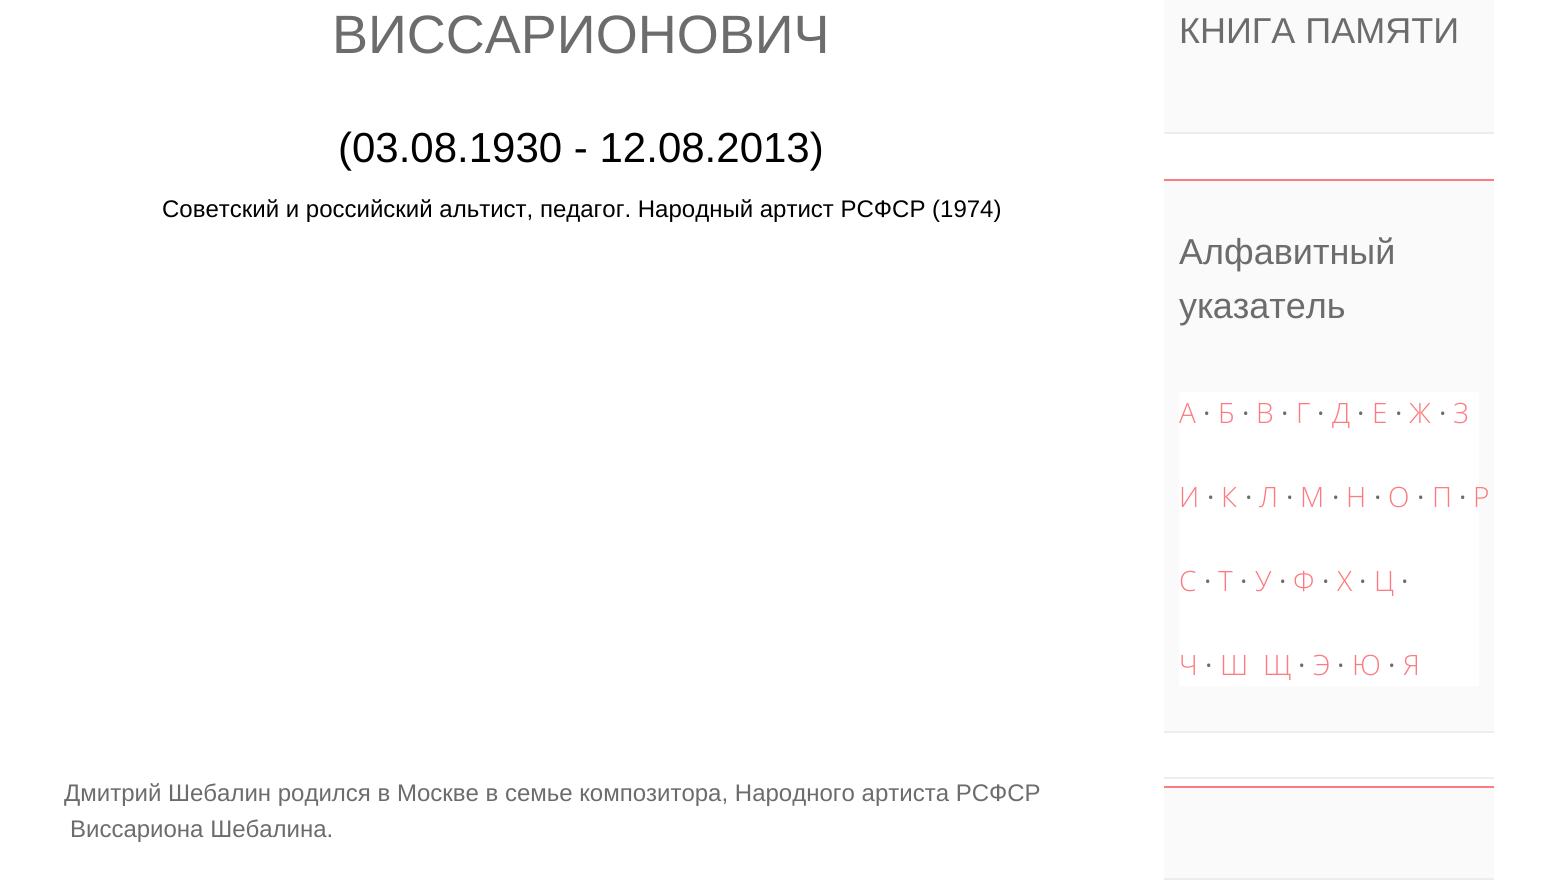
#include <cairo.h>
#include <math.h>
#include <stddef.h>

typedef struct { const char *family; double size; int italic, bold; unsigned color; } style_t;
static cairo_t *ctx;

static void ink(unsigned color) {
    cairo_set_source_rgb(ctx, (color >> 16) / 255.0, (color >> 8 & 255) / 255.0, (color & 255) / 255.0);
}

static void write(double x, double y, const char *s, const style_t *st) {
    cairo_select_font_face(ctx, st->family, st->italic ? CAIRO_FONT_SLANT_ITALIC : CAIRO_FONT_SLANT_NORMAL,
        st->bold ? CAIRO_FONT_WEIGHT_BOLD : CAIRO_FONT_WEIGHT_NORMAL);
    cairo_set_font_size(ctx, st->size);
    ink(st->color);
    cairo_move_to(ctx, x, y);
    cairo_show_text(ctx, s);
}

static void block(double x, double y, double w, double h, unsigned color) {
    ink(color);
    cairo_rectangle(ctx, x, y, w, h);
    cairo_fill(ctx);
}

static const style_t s1 = {"Liberation Sans", 54, 0, 0, 0x6c6c6c};
static const style_t s2 = {"Liberation Sans", 42, 0, 0, 0x000000};
static const style_t s3 = {"Liberation Sans", 24, 0, 0, 0x000000};
static const style_t s4 = {"Liberation Sans", 24, 0, 0, 0x6c6c6c};
static const style_t s5 = {"Liberation Sans", 36, 0, 0, 0x6c6c6c};
static const style_t s6 = {"Open Sans Light", 28, 0, 0, 0xfd7a80};
static const style_t s7 = {"Open Sans", 28, 0, 0, 0x6c6c6c};

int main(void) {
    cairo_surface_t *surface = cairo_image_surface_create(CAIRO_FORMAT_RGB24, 1552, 886);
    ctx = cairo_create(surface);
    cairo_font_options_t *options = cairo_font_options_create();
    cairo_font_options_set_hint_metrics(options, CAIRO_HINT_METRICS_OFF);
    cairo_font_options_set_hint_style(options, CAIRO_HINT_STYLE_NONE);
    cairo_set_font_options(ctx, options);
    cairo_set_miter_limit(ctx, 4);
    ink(0xffffff);
    cairo_paint(ctx);
    write(332, 53, "ВИССАРИОНОВИЧ", &s1);
    write(338, 162, "(03.08.1930 - 12.08.2013)", &s2);
    write(162, 217, "Советский и российский альтист, педагог. Народный артист РСФСР (1974)", &s3);
    write(64, 801, "Дмитрий Шебалин родился в Москве в семье композитора, Народного артиста РСФСР", &s4);
    write(70, 837, "Виссариона Шебалина.", &s4);
    block(1164, 0, 330, 132, 0xfafafa);
    block(1164, 132, 330, 2, 0xededed);
    write(1179, 43, "КНИГА ПАМЯТИ", &s5);
    block(1164, 181, 330, 550, 0xfafafa);
    block(1164, 179, 330, 2, 0xfd7a80);
    block(1164, 731, 330, 2, 0xededed);
    write(1179, 264, "Алфавитный", &s5);
    write(1179, 318, "указатель", &s5);
    block(1179, 392, 300, 294, 0xffffff);
    write(1179, 423, "А", &s6);
    write(1203, 423, "·", &s7);
    write(1218, 423, "Б", &s6);
    write(1242, 423, "·", &s7);
    write(1256, 423, "В", &s6);
    write(1281, 423, "·", &s7);
    write(1296, 423, "Г", &s6);
    write(1317, 423, "·", &s7);
    write(1332, 423, "Д", &s6);
    write(1357, 423, "·", &s7);
    write(1372, 423, "Е", &s6);
    write(1395, 423, "·", &s7);
    write(1409, 423, "Ж", &s6);
    write(1439, 423, "·", &s7);
    write(1453, 423, "З", &s6);
    write(1179, 507, "И", &s6);
    write(1207, 507, "·", &s7);
    write(1221, 507, "К", &s6);
    write(1245, 507, "·", &s7);
    write(1259, 507, "Л", &s6);
    write(1286, 507, "·", &s7);
    write(1300, 507, "М", &s6);
    write(1332, 507, "·", &s7);
    write(1346, 507, "Н", &s6);
    write(1374, 507, "·", &s7);
    write(1388, 507, "О", &s6);
    write(1417, 507, "·", &s7);
    write(1432, 507, "П", &s6);
    write(1459, 507, "·", &s7);
    write(1473, 507, "Р", &s6);
    write(1179, 591, "С", &s6);
    write(1204, 591, "·", &s7);
    write(1218, 591, "Т", &s6);
    write(1240, 591, "·", &s7);
    write(1255, 591, "У", &s6);
    write(1279, 591, "·", &s7);
    write(1293, 591, "Ф", &s6);
    write(1322, 591, "·", &s7);
    write(1337, 591, "Х", &s6);
    write(1359, 591, "·", &s7);
    write(1374, 591, "Ц", &s6);
    write(1401, 591, "·", &s7);
    write(1179, 675, "Ч", &s6);
    write(1205, 675, "·", &s7);
    write(1220, 675, "Ш", &s6);
    write(1263, 675, "Щ", &s6);
    write(1298, 675, "·", &s7);
    write(1313, 675, "Э", &s6);
    write(1337, 675, "·", &s7);
    write(1352, 675, "Ю", &s6);
    write(1388, 675, "·", &s7);
    write(1403, 675, "Я", &s6);
    block(1164, 777, 330, 2, 0xededed);
    block(1164, 788, 330, 90, 0xfafafa);
    block(1164, 786, 330, 2, 0xfd7a80);
    block(1164, 878, 330, 2, 0xededed);
    cairo_surface_write_to_png(surface, "screenshot.png");
    cairo_font_options_destroy(options);
    cairo_destroy(ctx);
    cairo_surface_destroy(surface);
    return 0;
}
